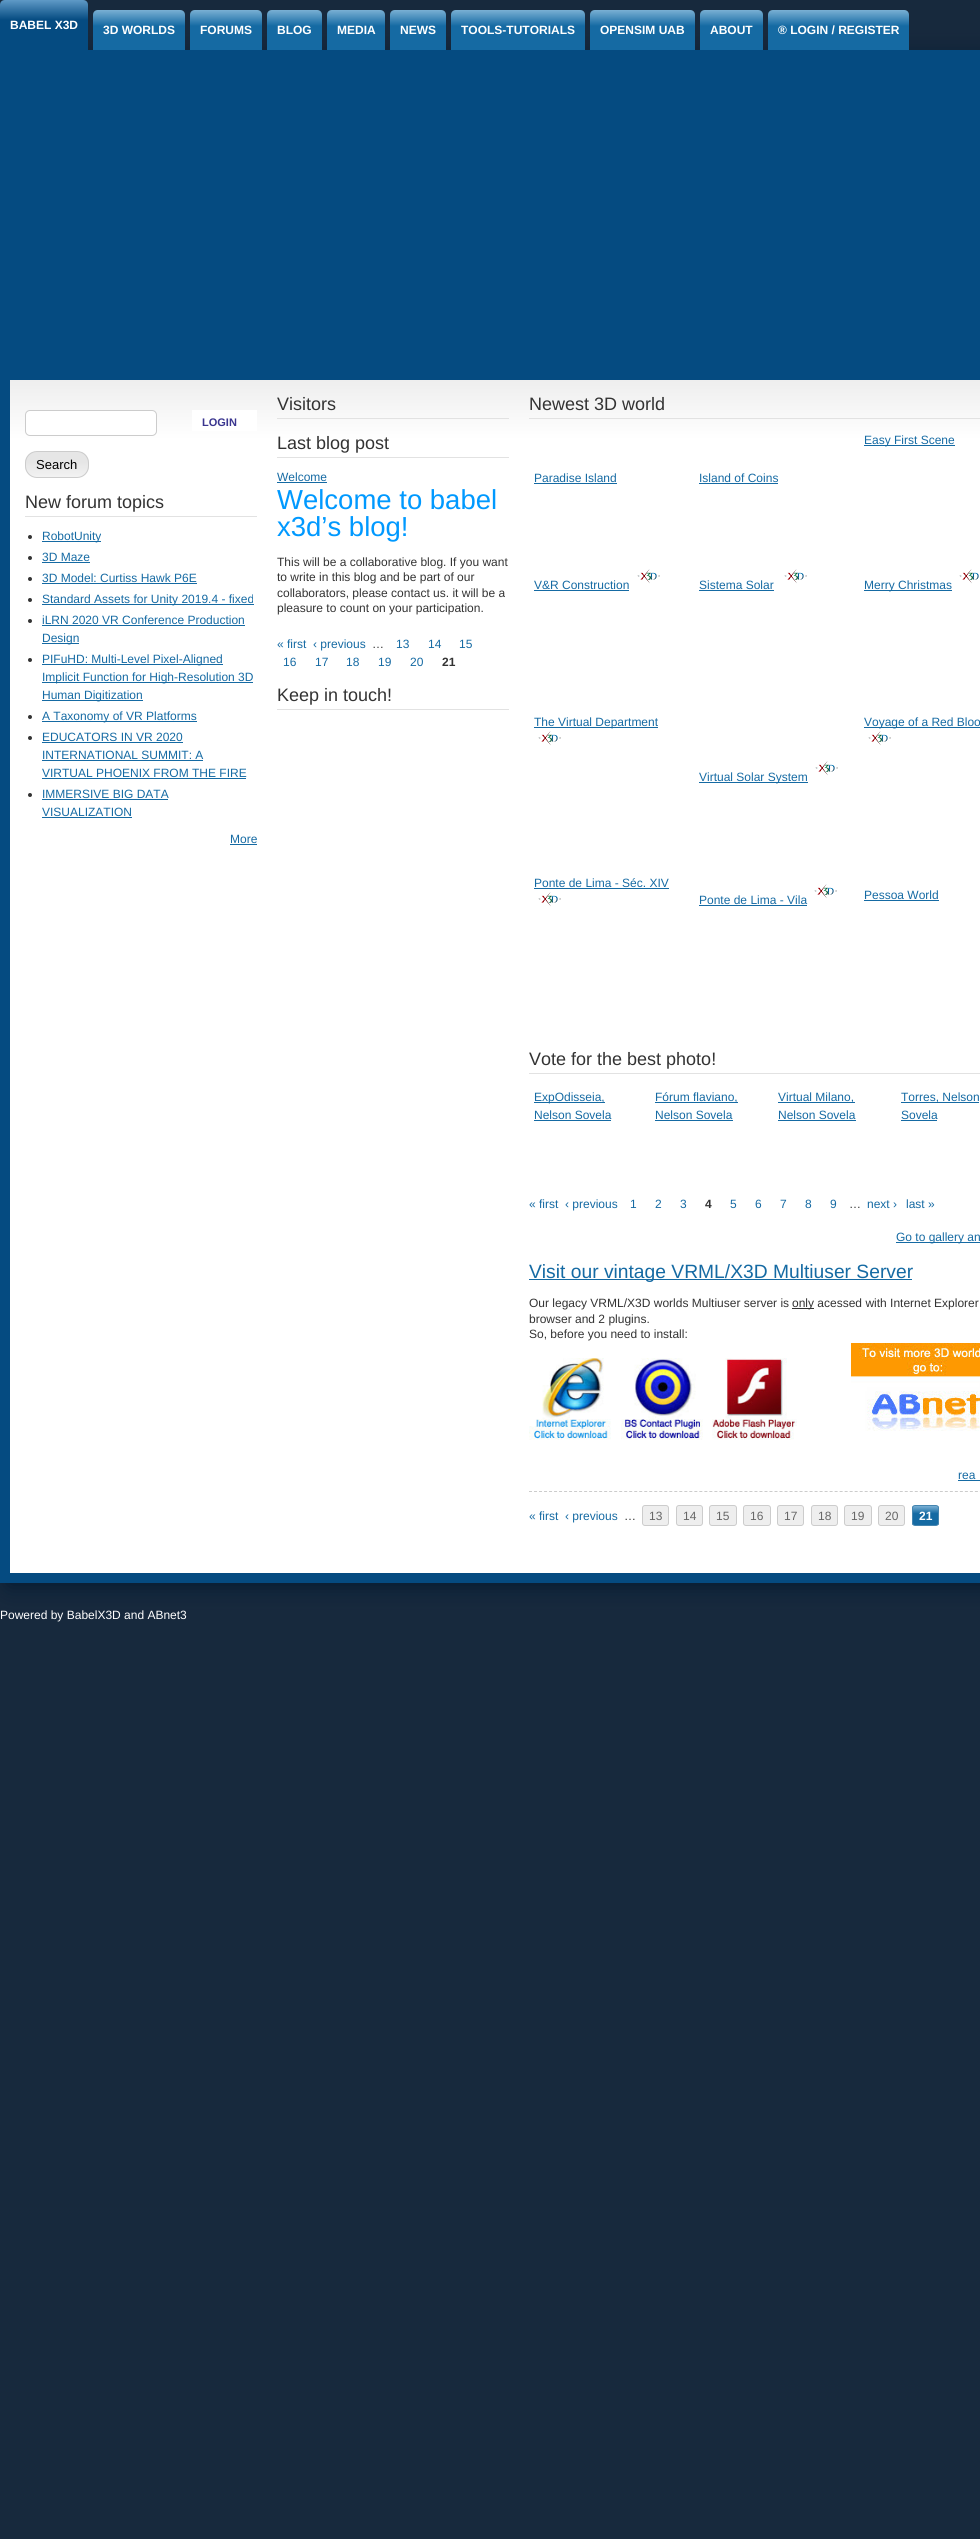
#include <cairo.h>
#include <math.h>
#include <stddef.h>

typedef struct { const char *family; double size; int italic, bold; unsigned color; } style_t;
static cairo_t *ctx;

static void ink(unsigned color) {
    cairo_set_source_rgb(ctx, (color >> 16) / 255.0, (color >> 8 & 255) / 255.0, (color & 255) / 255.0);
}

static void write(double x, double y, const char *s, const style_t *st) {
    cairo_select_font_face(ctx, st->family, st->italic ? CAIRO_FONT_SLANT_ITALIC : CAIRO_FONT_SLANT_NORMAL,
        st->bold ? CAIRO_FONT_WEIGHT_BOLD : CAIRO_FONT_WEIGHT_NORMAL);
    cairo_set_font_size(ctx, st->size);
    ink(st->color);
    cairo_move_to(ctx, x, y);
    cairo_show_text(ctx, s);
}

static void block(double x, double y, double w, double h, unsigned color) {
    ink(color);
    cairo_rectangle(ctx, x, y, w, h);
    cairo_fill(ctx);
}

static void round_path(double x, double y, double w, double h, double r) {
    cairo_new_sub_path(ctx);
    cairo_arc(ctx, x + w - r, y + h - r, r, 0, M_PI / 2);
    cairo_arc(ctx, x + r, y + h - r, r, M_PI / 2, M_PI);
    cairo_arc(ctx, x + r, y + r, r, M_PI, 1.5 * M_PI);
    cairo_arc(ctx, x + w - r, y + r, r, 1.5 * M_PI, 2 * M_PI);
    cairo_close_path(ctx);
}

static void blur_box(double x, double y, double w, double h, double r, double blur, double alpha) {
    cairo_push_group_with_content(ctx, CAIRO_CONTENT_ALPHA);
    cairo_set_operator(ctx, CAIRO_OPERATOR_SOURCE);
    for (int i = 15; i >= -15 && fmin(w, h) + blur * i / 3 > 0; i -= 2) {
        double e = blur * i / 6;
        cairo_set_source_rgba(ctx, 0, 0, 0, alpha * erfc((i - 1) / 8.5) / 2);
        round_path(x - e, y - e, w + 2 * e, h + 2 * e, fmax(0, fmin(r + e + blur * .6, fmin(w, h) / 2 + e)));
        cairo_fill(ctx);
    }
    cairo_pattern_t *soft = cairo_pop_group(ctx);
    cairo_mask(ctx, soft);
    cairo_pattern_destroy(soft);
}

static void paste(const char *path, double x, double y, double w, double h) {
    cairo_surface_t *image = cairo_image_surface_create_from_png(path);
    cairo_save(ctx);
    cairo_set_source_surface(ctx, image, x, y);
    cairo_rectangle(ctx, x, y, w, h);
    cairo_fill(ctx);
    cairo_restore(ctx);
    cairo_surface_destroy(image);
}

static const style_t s1 = {"Liberation Sans", 12, 0, 1, 0xffffff};
static const style_t s2 = {"Liberation Sans", 11, 0, 1, 0x3a358f};
static const style_t s3 = {"Liberation Sans", 13, 0, 0, 0x000000};
static const style_t s4 = {"Liberation Sans", 18, 0, 0, 0x333333};
static const style_t s5 = {"Liberation Sans", 12, 0, 0, 0x156aa3};
static const style_t s6 = {"Liberation Sans", 27.5, 0, 0, 0x0099ff};
static const style_t s7 = {"Liberation Sans", 12, 0, 0, 0x333333};
static const style_t s8 = {"Liberation Sans", 12, 0, 1, 0x333333};
static const style_t s9 = {"Liberation Sans", 19.25, 0, 0, 0x156aa3};
static const style_t s10 = {"Liberation Sans", 12, 0, 0, 0x666666};
static const style_t s11 = {"Liberation Sans", 12, 0, 0, 0xffffff};

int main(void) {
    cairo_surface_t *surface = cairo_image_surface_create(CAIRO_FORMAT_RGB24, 980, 2539);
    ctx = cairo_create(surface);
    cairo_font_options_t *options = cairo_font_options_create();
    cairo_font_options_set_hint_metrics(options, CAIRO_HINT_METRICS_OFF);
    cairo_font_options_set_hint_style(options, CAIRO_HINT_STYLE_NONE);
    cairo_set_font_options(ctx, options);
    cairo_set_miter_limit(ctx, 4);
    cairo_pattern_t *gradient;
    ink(0x17293d);
    cairo_paint(ctx);
    ink(0x051b32);
    blur_box(5, 55, 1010, 1533, 5, 10, 1);
    gradient = cairo_pattern_create_linear(0, 0, 0, 50);
    cairo_pattern_add_color_stop_rgba(gradient, 0, 0.373, 0.604, 0.78, 1);
    cairo_pattern_add_color_stop_rgba(gradient, 0.4, 0.02, 0.294, 0.506, 1);
    cairo_set_source(ctx, gradient);
    cairo_pattern_destroy(gradient);
    cairo_new_path(ctx);
    cairo_move_to(ctx, 5, 0);
    cairo_line_to(ctx, 83, 0);
    cairo_curve_to(ctx, 86, 0, 88, 2, 88, 5);
    cairo_line_to(ctx, 88, 50);
    cairo_line_to(ctx, 0, 50);
    cairo_line_to(ctx, 0, 5);
    cairo_curve_to(ctx, 0, 2, 2, 0, 5, 0);
    cairo_close_path(ctx);
    cairo_fill(ctx);
    write(10, 29, "BABEL X3D", &s1);
    gradient = cairo_pattern_create_linear(93, 10, 93, 50);
    cairo_pattern_add_color_stop_rgba(gradient, 0, 0.478, 0.69, 0.831, 1);
    cairo_pattern_add_color_stop_rgba(gradient, 0.4, 0.082, 0.416, 0.639, 1);
    cairo_set_source(ctx, gradient);
    cairo_pattern_destroy(gradient);
    cairo_new_path(ctx);
    cairo_move_to(ctx, 98, 10);
    cairo_line_to(ctx, 180, 10);
    cairo_curve_to(ctx, 183, 10, 185, 12, 185, 15);
    cairo_line_to(ctx, 185, 50);
    cairo_line_to(ctx, 93, 50);
    cairo_line_to(ctx, 93, 15);
    cairo_curve_to(ctx, 93, 12, 95, 10, 98, 10);
    cairo_close_path(ctx);
    cairo_fill(ctx);
    write(103, 34, "3D WORLDS", &s1);
    gradient = cairo_pattern_create_linear(190, 10, 190, 50);
    cairo_pattern_add_color_stop_rgba(gradient, 0, 0.478, 0.69, 0.831, 1);
    cairo_pattern_add_color_stop_rgba(gradient, 0.4, 0.082, 0.416, 0.639, 1);
    cairo_set_source(ctx, gradient);
    cairo_pattern_destroy(gradient);
    cairo_new_path(ctx);
    cairo_move_to(ctx, 195, 10);
    cairo_line_to(ctx, 257, 10);
    cairo_curve_to(ctx, 260, 10, 262, 12, 262, 15);
    cairo_line_to(ctx, 262, 50);
    cairo_line_to(ctx, 190, 50);
    cairo_line_to(ctx, 190, 15);
    cairo_curve_to(ctx, 190, 12, 192, 10, 195, 10);
    cairo_close_path(ctx);
    cairo_fill(ctx);
    write(200, 34, "FORUMS", &s1);
    gradient = cairo_pattern_create_linear(267, 10, 267, 50);
    cairo_pattern_add_color_stop_rgba(gradient, 0, 0.478, 0.69, 0.831, 1);
    cairo_pattern_add_color_stop_rgba(gradient, 0.4, 0.082, 0.416, 0.639, 1);
    cairo_set_source(ctx, gradient);
    cairo_pattern_destroy(gradient);
    cairo_new_path(ctx);
    cairo_move_to(ctx, 272, 10);
    cairo_line_to(ctx, 317, 10);
    cairo_curve_to(ctx, 320, 10, 322, 12, 322, 15);
    cairo_line_to(ctx, 322, 50);
    cairo_line_to(ctx, 267, 50);
    cairo_line_to(ctx, 267, 15);
    cairo_curve_to(ctx, 267, 12, 269, 10, 272, 10);
    cairo_close_path(ctx);
    cairo_fill(ctx);
    write(277, 34, "BLOG", &s1);
    gradient = cairo_pattern_create_linear(327, 10, 327, 50);
    cairo_pattern_add_color_stop_rgba(gradient, 0, 0.478, 0.69, 0.831, 1);
    cairo_pattern_add_color_stop_rgba(gradient, 0.4, 0.082, 0.416, 0.639, 1);
    cairo_set_source(ctx, gradient);
    cairo_pattern_destroy(gradient);
    cairo_new_path(ctx);
    cairo_move_to(ctx, 332, 10);
    cairo_line_to(ctx, 380, 10);
    cairo_curve_to(ctx, 383, 10, 385, 12, 385, 15);
    cairo_line_to(ctx, 385, 50);
    cairo_line_to(ctx, 327, 50);
    cairo_line_to(ctx, 327, 15);
    cairo_curve_to(ctx, 327, 12, 329, 10, 332, 10);
    cairo_close_path(ctx);
    cairo_fill(ctx);
    write(337, 34, "MEDIA", &s1);
    gradient = cairo_pattern_create_linear(390, 10, 390, 50);
    cairo_pattern_add_color_stop_rgba(gradient, 0, 0.478, 0.69, 0.831, 1);
    cairo_pattern_add_color_stop_rgba(gradient, 0.4, 0.082, 0.416, 0.639, 1);
    cairo_set_source(ctx, gradient);
    cairo_pattern_destroy(gradient);
    cairo_new_path(ctx);
    cairo_move_to(ctx, 395, 10);
    cairo_line_to(ctx, 441, 10);
    cairo_curve_to(ctx, 444, 10, 446, 12, 446, 15);
    cairo_line_to(ctx, 446, 50);
    cairo_line_to(ctx, 390, 50);
    cairo_line_to(ctx, 390, 15);
    cairo_curve_to(ctx, 390, 12, 392, 10, 395, 10);
    cairo_close_path(ctx);
    cairo_fill(ctx);
    write(400, 34, "NEWS", &s1);
    gradient = cairo_pattern_create_linear(451, 10, 451, 50);
    cairo_pattern_add_color_stop_rgba(gradient, 0, 0.478, 0.69, 0.831, 1);
    cairo_pattern_add_color_stop_rgba(gradient, 0.4, 0.082, 0.416, 0.639, 1);
    cairo_set_source(ctx, gradient);
    cairo_pattern_destroy(gradient);
    cairo_new_path(ctx);
    cairo_move_to(ctx, 456, 10);
    cairo_line_to(ctx, 580, 10);
    cairo_curve_to(ctx, 583, 10, 585, 12, 585, 15);
    cairo_line_to(ctx, 585, 50);
    cairo_line_to(ctx, 451, 50);
    cairo_line_to(ctx, 451, 15);
    cairo_curve_to(ctx, 451, 12, 453, 10, 456, 10);
    cairo_close_path(ctx);
    cairo_fill(ctx);
    write(461, 34, "TOOLS-TUTORIALS", &s1);
    gradient = cairo_pattern_create_linear(590, 10, 590, 50);
    cairo_pattern_add_color_stop_rgba(gradient, 0, 0.478, 0.69, 0.831, 1);
    cairo_pattern_add_color_stop_rgba(gradient, 0.4, 0.082, 0.416, 0.639, 1);
    cairo_set_source(ctx, gradient);
    cairo_pattern_destroy(gradient);
    cairo_new_path(ctx);
    cairo_move_to(ctx, 595, 10);
    cairo_line_to(ctx, 690, 10);
    cairo_curve_to(ctx, 693, 10, 695, 12, 695, 15);
    cairo_line_to(ctx, 695, 50);
    cairo_line_to(ctx, 590, 50);
    cairo_line_to(ctx, 590, 15);
    cairo_curve_to(ctx, 590, 12, 592, 10, 595, 10);
    cairo_close_path(ctx);
    cairo_fill(ctx);
    write(600, 34, "OPENSIM UAB", &s1);
    gradient = cairo_pattern_create_linear(700, 10, 700, 50);
    cairo_pattern_add_color_stop_rgba(gradient, 0, 0.478, 0.69, 0.831, 1);
    cairo_pattern_add_color_stop_rgba(gradient, 0.4, 0.082, 0.416, 0.639, 1);
    cairo_set_source(ctx, gradient);
    cairo_pattern_destroy(gradient);
    cairo_new_path(ctx);
    cairo_move_to(ctx, 705, 10);
    cairo_line_to(ctx, 758, 10);
    cairo_curve_to(ctx, 761, 10, 763, 12, 763, 15);
    cairo_line_to(ctx, 763, 50);
    cairo_line_to(ctx, 700, 50);
    cairo_line_to(ctx, 700, 15);
    cairo_curve_to(ctx, 700, 12, 702, 10, 705, 10);
    cairo_close_path(ctx);
    cairo_fill(ctx);
    write(710, 34, "ABOUT", &s1);
    gradient = cairo_pattern_create_linear(768, 10, 768, 50);
    cairo_pattern_add_color_stop_rgba(gradient, 0, 0.478, 0.69, 0.831, 1);
    cairo_pattern_add_color_stop_rgba(gradient, 0.4, 0.082, 0.416, 0.639, 1);
    cairo_set_source(ctx, gradient);
    cairo_pattern_destroy(gradient);
    cairo_new_path(ctx);
    cairo_move_to(ctx, 773, 10);
    cairo_line_to(ctx, 904, 10);
    cairo_curve_to(ctx, 907, 10, 909, 12, 909, 15);
    cairo_line_to(ctx, 909, 50);
    cairo_line_to(ctx, 768, 50);
    cairo_line_to(ctx, 768, 15);
    cairo_curve_to(ctx, 768, 12, 770, 10, 773, 10);
    cairo_close_path(ctx);
    cairo_fill(ctx);
    write(778, 34, "® LOGIN / REGISTER", &s1);
    cairo_new_path(ctx);
    cairo_move_to(ctx, 5, 55);
    cairo_line_to(ctx, 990, 55);
    cairo_line_to(ctx, 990, 1578);
    cairo_line_to(ctx, 5, 1578);
    cairo_close_path(ctx);
    ink(0x054b81);
    cairo_set_line_width(ctx, 10);
    cairo_stroke(ctx);
    block(10, 60, 970, 320, 0x054b81);
    gradient = cairo_pattern_create_linear(10, 380, 10, 1573);
    cairo_pattern_add_color_stop_rgba(gradient, 0, 0.933, 0.933, 0.933, 1);
    cairo_pattern_add_color_stop_rgba(gradient, 0.05, 1, 1, 1, 1);
    cairo_set_source(ctx, gradient);
    cairo_pattern_destroy(gradient);
    cairo_rectangle(ctx, 10, 380, 970, 1193);
    cairo_fill(ctx);
    block(192, 410, 65, 21, 0xffffff);
    write(202, 426, "LOGIN", &s2);
    ink(0xffffff);
    round_path(25.5, 410.5, 131, 25, 4.5);
    cairo_fill_preserve(ctx);
    ink(0xcccccc);
    cairo_set_line_width(ctx, 1);
    cairo_stroke(ctx);
    cairo_save(ctx);
    round_path(25, 451, 64, 27, 12);
    cairo_clip(ctx);
    gradient = cairo_pattern_create_linear(26, 477, 26, 452);
    cairo_pattern_add_color_stop_rgba(gradient, 0, 0.949, 0.949, 0.949, 1);
    cairo_pattern_add_color_stop_rgba(gradient, 0.6, 0.902, 0.902, 0.902, 1);
    cairo_set_source(ctx, gradient);
    cairo_pattern_destroy(gradient);
    cairo_rectangle(ctx, 25, 452, 64, 25);
    cairo_fill(ctx);
    cairo_restore(ctx);
    round_path(25.5, 451.5, 63, 26, 11.5);
    cairo_stroke(ctx);
    write(36, 469, "Search", &s3);
    block(25, 516, 232, 1, 0xe2e2e2);
    write(25, 508, "New forum topics", &s4);
    cairo_new_path(ctx);
    cairo_arc(ctx, 30, 537, 2, 0, 2 * M_PI);
    cairo_fill(ctx);
    block(42, 541, 59, 1, 0x156aa3);
    write(42, 540, "RobotUnity", &s5);
    ink(0x333333);
    cairo_new_path(ctx);
    cairo_arc(ctx, 30, 558, 2, 0, 2 * M_PI);
    cairo_fill(ctx);
    write(42, 561, "3D Maze", &s5);
    block(42, 562, 48, 1, 0x156aa3);
    ink(0x333333);
    cairo_new_path(ctx);
    cairo_arc(ctx, 30, 579, 2, 0, 2 * M_PI);
    cairo_fill(ctx);
    write(42, 582, "3D Model: Curtiss Hawk P6E", &s5);
    block(42, 583, 155, 1, 0x156aa3);
    ink(0x333333);
    cairo_new_path(ctx);
    cairo_arc(ctx, 30, 600, 2, 0, 2 * M_PI);
    cairo_fill(ctx);
    block(42, 604, 212, 1, 0x156aa3);
    write(42, 603, "Standard Assets for Unity 2019.4 - fixed", &s5);
    ink(0x333333);
    cairo_new_path(ctx);
    cairo_arc(ctx, 30, 621, 2, 0, 2 * M_PI);
    cairo_fill(ctx);
    write(42, 624, "iLRN 2020 VR Conference Production", &s5);
    block(42, 625, 203, 1, 0x156aa3);
    block(42, 643, 37, 1, 0x156aa3);
    write(42, 642, "Design", &s5);
    ink(0x333333);
    cairo_new_path(ctx);
    cairo_arc(ctx, 30, 660, 2, 0, 2 * M_PI);
    cairo_fill(ctx);
    block(42, 664, 181, 1, 0x156aa3);
    write(42, 663, "PIFuHD: Multi-Level Pixel-Aligned", &s5);
    block(42, 682, 211, 1, 0x156aa3);
    write(42, 681, "Implicit Function for High-Resolution 3D", &s5);
    block(42, 700, 101, 1, 0x156aa3);
    write(42, 699, "Human Digitization", &s5);
    ink(0x333333);
    cairo_new_path(ctx);
    cairo_arc(ctx, 30, 717, 2, 0, 2 * M_PI);
    cairo_fill(ctx);
    block(42, 721, 155, 1, 0x156aa3);
    write(42, 720, "A Taxonomy of VR Platforms", &s5);
    ink(0x333333);
    cairo_new_path(ctx);
    cairo_arc(ctx, 30, 738, 2, 0, 2 * M_PI);
    cairo_fill(ctx);
    write(42, 741, "EDUCATORS IN VR 2020", &s5);
    block(42, 742, 141, 1, 0x156aa3);
    write(42, 759, "INTERNATIONAL SUMMIT: A", &s5);
    block(42, 760, 161, 1, 0x156aa3);
    write(42, 777, "VIRTUAL PHOENIX FROM THE FIRE", &s5);
    block(42, 778, 204, 1, 0x156aa3);
    ink(0x333333);
    cairo_new_path(ctx);
    cairo_arc(ctx, 30, 795, 2, 0, 2 * M_PI);
    cairo_fill(ctx);
    write(42, 798, "IMMERSIVE BIG DATA", &s5);
    block(42, 799, 126, 1, 0x156aa3);
    write(42, 816, "VISUALIZATION", &s5);
    block(42, 817, 90, 1, 0x156aa3);
    write(230, 843, "More", &s5);
    block(230, 844, 27, 1, 0x156aa3);
    block(277, 418, 232, 1, 0xe2e2e2);
    write(277, 410, "Visitors", &s4);
    block(277, 457, 232, 1, 0xe2e2e2);
    write(277, 449, "Last blog post", &s4);
    write(277, 481, "Welcome", &s5);
    block(277, 482, 50, 1, 0x156aa3);
    write(277, 509, "Welcome to babel", &s6);
    write(277, 536, "x3d’s blog!", &s6);
    write(277, 566, "This will be a collaborative blog. If you want", &s7);
    write(277, 581, "to write in this blog and be part of our", &s7);
    write(277, 597, "collaborators, please contact us. it will be a", &s7);
    write(277, 612, "pleasure to count on your participation.", &s7);
    write(277, 648, "« first", &s5);
    write(313, 648, "‹ previous", &s5);
    write(372, 648, "…", &s7);
    write(396, 648, "13", &s5);
    write(428, 648, "14", &s5);
    write(459, 648, "15", &s5);
    write(283, 666, "16", &s5);
    write(315, 666, "17", &s5);
    write(346, 666, "18", &s5);
    write(378, 666, "19", &s5);
    write(410, 666, "20", &s5);
    write(442, 666, "21", &s8);
    block(277, 709, 232, 1, 0xe2e2e2);
    write(277, 701, "Keep in touch!", &s4);
    block(529, 418, 451, 1, 0xe2e2e2);
    write(529, 410, "Newest 3D world", &s4);
    block(864, 445, 91, 1, 0x156aa3);
    write(864, 444, "Easy First Scene", &s5);
    write(534, 482, "Paradise Island", &s5);
    block(534, 483, 83, 1, 0x156aa3);
    write(699, 482, "Island of Coins", &s5);
    block(699, 483, 79, 1, 0x156aa3);
    paste("pic1.png", 637, 569, 23, 15);
    write(534, 589, "V&R Construction", &s5);
    block(534, 590, 95, 1, 0x156aa3);
    paste("pic1.png", 784, 569, 23, 15);
    write(699, 589, "Sistema Solar", &s5);
    block(699, 590, 75, 1, 0x156aa3);
    paste("pic2.png", 959, 569, 20, 15);
    block(864, 590, 88, 1, 0x156aa3);
    write(864, 589, "Merry Christmas", &s5);
    block(534, 727, 124, 1, 0x156aa3);
    write(534, 726, "The Virtual Department", &s5);
    paste("pic1.png", 538, 731, 23, 15);
    block(864, 727, 116, 1, 0x156aa3);
    write(864, 726, "Voyage of a Red Bloo", &s5);
    paste("pic1.png", 868, 731, 23, 15);
    paste("pic1.png", 815, 761, 23, 15);
    block(699, 782, 109, 1, 0x156aa3);
    write(699, 781, "Virtual Solar System", &s5);
    write(534, 887, "Ponte de Lima - Séc. XIV", &s5);
    block(534, 888, 135, 1, 0x156aa3);
    paste("pic1.png", 538, 892, 23, 15);
    paste("pic1.png", 814, 884, 23, 15);
    write(699, 904, "Ponte de Lima - Vila", &s5);
    block(699, 905, 108, 1, 0x156aa3);
    write(864, 899, "Pessoa World", &s5);
    block(864, 900, 75, 1, 0x156aa3);
    block(529, 1073, 451, 1, 0xe2e2e2);
    write(529, 1065, "Vote for the best photo!", &s4);
    block(534, 1102, 71, 1, 0x156aa3);
    write(534, 1101, "ExpOdisseia,", &s5);
    write(534, 1119, "Nelson Sovela", &s5);
    block(534, 1120, 77, 1, 0x156aa3);
    block(655, 1102, 83, 1, 0x156aa3);
    write(655, 1101, "Fórum flaviano,", &s5);
    write(655, 1119, "Nelson Sovela", &s5);
    block(655, 1120, 78, 1, 0x156aa3);
    block(778, 1102, 77, 1, 0x156aa3);
    write(778, 1101, "Virtual Milano,", &s5);
    write(778, 1119, "Nelson Sovela", &s5);
    block(778, 1120, 78, 1, 0x156aa3);
    block(901, 1102, 78, 1, 0x156aa3);
    write(901, 1101, "Torres, Nelson", &s5);
    write(901, 1119, "Sovela", &s5);
    block(901, 1120, 36, 1, 0x156aa3);
    write(529, 1208, "« first", &s5);
    write(565, 1208, "‹ previous", &s5);
    write(630, 1208, "1", &s5);
    write(655, 1208, "2", &s5);
    write(680, 1208, "3", &s5);
    write(705, 1208, "4", &s8);
    write(730, 1208, "5", &s5);
    write(755, 1208, "6", &s5);
    write(780, 1208, "7", &s5);
    write(805, 1208, "8", &s5);
    write(830, 1208, "9", &s5);
    write(849, 1208, "…", &s7);
    write(867, 1208, "next ›", &s5);
    write(906, 1208, "last »", &s5);
    block(896, 1242, 84, 1, 0x156aa3);
    write(896, 1241, "Go to gallery an", &s5);
    cairo_new_path(ctx);
    cairo_move_to(ctx, 529, 1491.5);
    cairo_line_to(ctx, 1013, 1491.5);
    ink(0xcccccc);
    cairo_set_dash(ctx, (double[]){3, 2.01}, 2, 0);
    cairo_stroke(ctx);
    block(529, 1279, 383, 1, 0x156aa3);
    write(529, 1278, "Visit our vintage VRML/X3D Multiuser Server", &s9);
    write(529, 1307, "Our legacy VRML/X3D worlds Multiuser server is", &s7);
    block(792, 1308, 22, 1, 0x333333);
    write(792, 1307, "only acessed with Internet Explorer", &s7);
    write(529, 1323, "browser and 2 plugins.", &s7);
    write(529, 1338, "So, before you need to install:", &s7);
    paste("pic3.png", 529, 1358, 82, 82);
    paste("pic4.png", 621, 1358, 82, 82);
    paste("pic5.png", 712, 1358, 85, 82);
    paste("pic6.png", 851, 1343, 129, 88);
    write(958, 1479, "rea", &s5);
    block(958, 1480, 22, 1, 0x156aa3);
    write(529, 1520, "« first", &s5);
    write(565, 1520, "‹ previous", &s5);
    write(624, 1520, "…", &s7);
    ink(0xeeeeee);
    round_path(642.5, 1505.5, 26, 20, 2.5);
    cairo_fill_preserve(ctx);
    ink(0xcccccc);
    cairo_set_dash(ctx, NULL, 0, 0);
    cairo_stroke(ctx);
    write(649, 1520, "13", &s10);
    ink(0xeeeeee);
    round_path(676.5, 1505.5, 26, 20, 2.5);
    cairo_fill_preserve(ctx);
    ink(0xcccccc);
    cairo_stroke(ctx);
    write(683, 1520, "14", &s10);
    ink(0xeeeeee);
    round_path(709.5, 1505.5, 27, 20, 2.5);
    cairo_fill_preserve(ctx);
    ink(0xcccccc);
    cairo_stroke(ctx);
    write(716, 1520, "15", &s10);
    ink(0xeeeeee);
    round_path(743.5, 1505.5, 27, 20, 2.5);
    cairo_fill_preserve(ctx);
    ink(0xcccccc);
    cairo_stroke(ctx);
    write(750, 1520, "16", &s10);
    ink(0xeeeeee);
    round_path(777.5, 1505.5, 26, 20, 2.5);
    cairo_fill_preserve(ctx);
    ink(0xcccccc);
    cairo_stroke(ctx);
    write(784, 1520, "17", &s10);
    ink(0xeeeeee);
    round_path(811.5, 1505.5, 26, 20, 2.5);
    cairo_fill_preserve(ctx);
    ink(0xcccccc);
    cairo_stroke(ctx);
    write(818, 1520, "18", &s10);
    ink(0xeeeeee);
    round_path(844.5, 1505.5, 27, 20, 2.5);
    cairo_fill_preserve(ctx);
    ink(0xcccccc);
    cairo_stroke(ctx);
    write(851, 1520, "19", &s10);
    ink(0xeeeeee);
    round_path(878.5, 1505.5, 26, 20, 2.5);
    cairo_fill_preserve(ctx);
    ink(0xcccccc);
    cairo_stroke(ctx);
    write(885, 1520, "20", &s10);
    cairo_save(ctx);
    round_path(912, 1505, 27, 21, 3);
    cairo_clip(ctx);
    gradient = cairo_pattern_create_linear(913, 1506, 913, 1525);
    cairo_pattern_add_color_stop_rgba(gradient, 0, 0.478, 0.69, 0.831, 1);
    cairo_pattern_add_color_stop_rgba(gradient, 0.4, 0.082, 0.416, 0.639, 1);
    cairo_set_source(ctx, gradient);
    cairo_pattern_destroy(gradient);
    cairo_rectangle(ctx, 912, 1506, 27, 19);
    cairo_fill(ctx);
    cairo_restore(ctx);
    round_path(912.5, 1505.5, 26, 20, 2.5);
    ink(0x4585af);
    cairo_stroke(ctx);
    write(919, 1520, "21", &s1);
    write(0, 1619, "Powered by BabelX3D and ABnet3", &s11);
    cairo_surface_write_to_png(surface, "screenshot.png");
    cairo_font_options_destroy(options);
    cairo_destroy(ctx);
    cairo_surface_destroy(surface);
    return 0;
}
